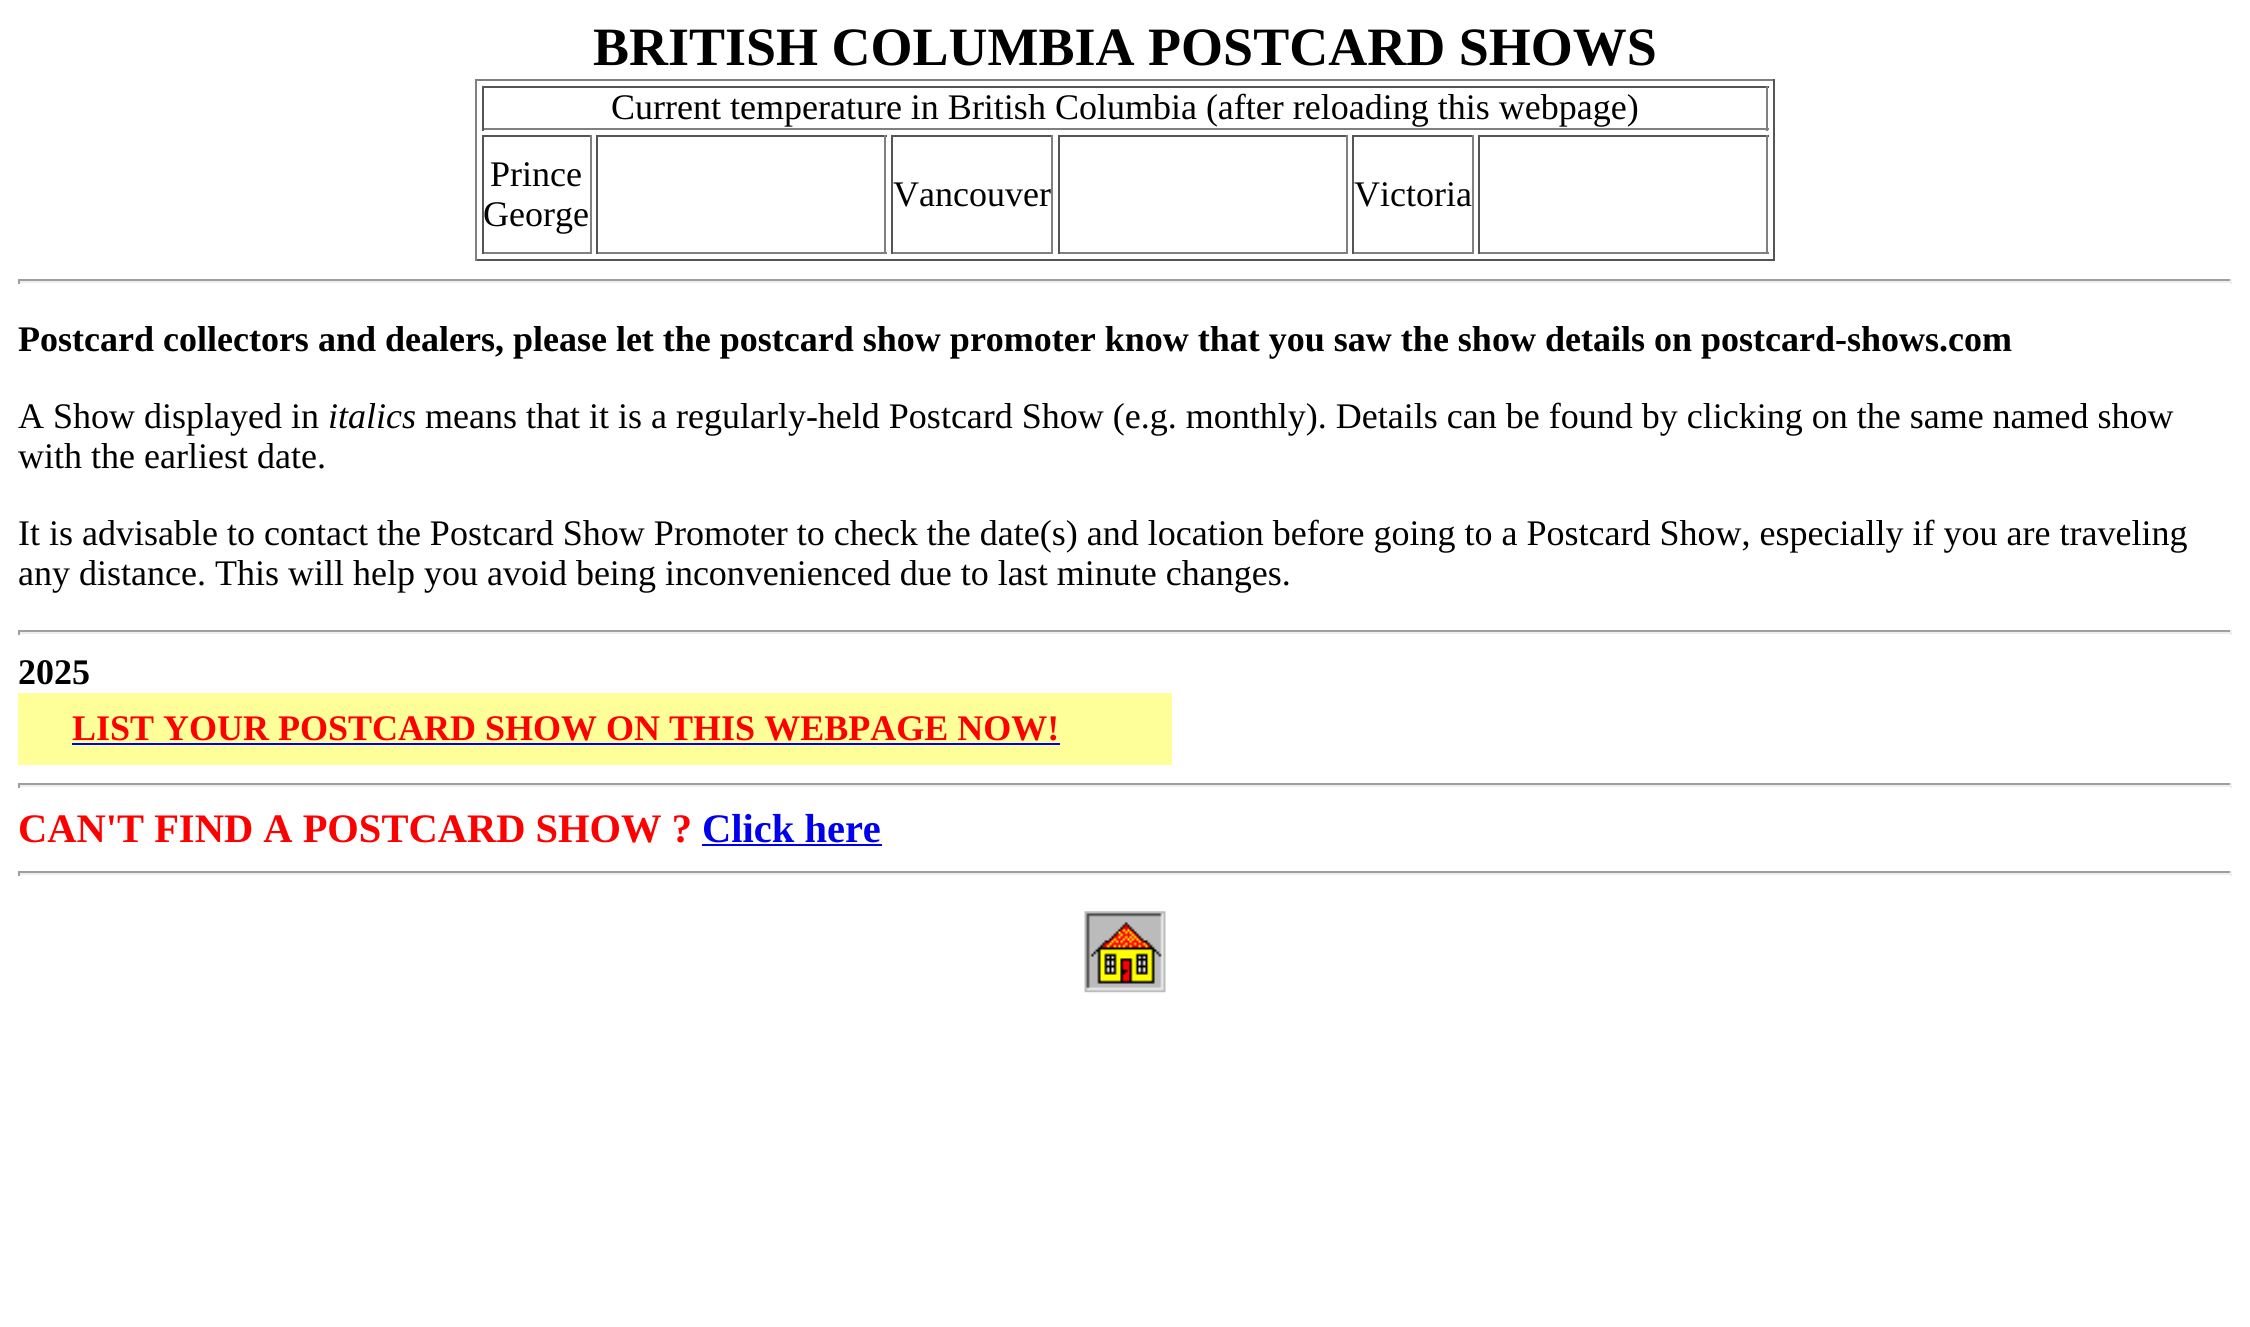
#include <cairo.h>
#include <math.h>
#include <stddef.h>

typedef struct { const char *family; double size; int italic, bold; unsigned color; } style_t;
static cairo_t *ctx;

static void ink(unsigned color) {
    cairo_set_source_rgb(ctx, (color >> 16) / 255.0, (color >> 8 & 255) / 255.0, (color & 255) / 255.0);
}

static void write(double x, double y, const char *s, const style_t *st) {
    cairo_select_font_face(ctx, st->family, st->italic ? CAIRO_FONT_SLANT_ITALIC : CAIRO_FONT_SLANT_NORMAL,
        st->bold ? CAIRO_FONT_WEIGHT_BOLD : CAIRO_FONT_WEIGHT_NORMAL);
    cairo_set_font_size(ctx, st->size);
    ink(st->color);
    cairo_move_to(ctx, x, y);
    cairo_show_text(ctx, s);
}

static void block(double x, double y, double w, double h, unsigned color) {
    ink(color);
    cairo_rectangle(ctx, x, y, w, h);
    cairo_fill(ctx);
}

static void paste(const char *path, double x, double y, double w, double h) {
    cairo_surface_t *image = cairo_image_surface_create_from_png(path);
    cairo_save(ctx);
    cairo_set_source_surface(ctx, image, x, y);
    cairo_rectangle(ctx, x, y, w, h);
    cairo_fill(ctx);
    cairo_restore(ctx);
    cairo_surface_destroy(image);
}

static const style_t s1 = {"Liberation Serif", 54, 0, 1, 0x000000};
static const style_t s2 = {"Liberation Serif", 36, 0, 0, 0x000000};
static const style_t s3 = {"Liberation Serif", 36, 0, 1, 0x000000};
static const style_t s4 = {"Liberation Serif", 36, 1, 0, 0x000000};
static const style_t s5 = {"Liberation Serif", 36, 0, 1, 0xff0000};
static const style_t s6 = {"Liberation Serif", 40.5, 0, 1, 0xff0000};
static const style_t s7 = {"Liberation Serif", 40.5, 0, 1, 0x0000ee};

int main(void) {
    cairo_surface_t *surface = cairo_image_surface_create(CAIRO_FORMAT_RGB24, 2250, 1327);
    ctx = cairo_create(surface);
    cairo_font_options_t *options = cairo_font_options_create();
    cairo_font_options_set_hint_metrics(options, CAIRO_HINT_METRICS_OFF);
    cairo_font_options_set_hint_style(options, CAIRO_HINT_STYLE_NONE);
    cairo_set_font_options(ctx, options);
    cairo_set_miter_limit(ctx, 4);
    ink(0xffffff);
    cairo_paint(ctx);
    write(593, 65, "BRITISH COLUMBIA POSTCARD SHOWS", &s1);
    block(475, 79, 1300, 2, 0x808080);
    block(1773, 79, 2, 182, 0x555555);
    block(475, 259, 1300, 2, 0x555555);
    block(475, 79, 2, 182, 0x808080);
    block(482, 86, 1287, 2, 0x555555);
    block(1766, 86, 2, 45, 0x808080);
    block(482, 128, 1287, 2, 0x808080);
    block(482, 86, 2, 45, 0x555555);
    write(611, 119, "Current temperature in British Columbia (after reloading this webpage)", &s2);
    block(482, 135, 110, 2, 0x555555);
    block(590, 135, 2, 119, 0x808080);
    block(482, 252, 110, 2, 0x808080);
    block(482, 135, 2, 119, 0x555555);
    write(490, 186, "Prince", &s2);
    write(483, 226, "George", &s2);
    block(596, 135, 291, 2, 0x555555);
    block(884, 135, 2, 119, 0x808080);
    block(596, 252, 291, 2, 0x808080);
    block(596, 135, 2, 119, 0x555555);
    block(891, 135, 162, 2, 0x555555);
    block(1051, 135, 2, 119, 0x808080);
    block(891, 252, 162, 2, 0x808080);
    block(891, 135, 2, 119, 0x555555);
    write(893, 206, "Vancouver", &s2);
    block(1058, 135, 290, 2, 0x555555);
    block(1346, 135, 2, 119, 0x808080);
    block(1058, 252, 290, 2, 0x808080);
    block(1058, 135, 2, 119, 0x555555);
    block(1352, 135, 122, 2, 0x555555);
    block(1472, 135, 2, 119, 0x808080);
    block(1352, 252, 122, 2, 0x808080);
    block(1352, 135, 2, 119, 0x555555);
    write(1354, 206, "Victoria", &s2);
    block(1478, 135, 291, 2, 0x555555);
    block(1766, 135, 2, 119, 0x808080);
    block(1478, 252, 291, 2, 0x808080);
    block(1478, 135, 2, 119, 0x555555);
    block(18, 279, 2214, 2, 0x9f9f9f);
    block(2230, 279, 2, 5, 0xeeeeee);
    block(18, 281, 2214, 2, 0xeeeeee);
    block(18, 279, 2, 5, 0x9f9f9f);
    write(18, 351, "Postcard collectors and dealers, please let the postcard show promoter know that you saw the show details on postcard-shows.com", &s3);
    write(18, 428, "A Show displayed in", &s2);
    write(328, 428, "italics", &s4);
    write(425, 428, "means that it is a regularly-held Postcard Show (e.g. monthly). Details can be found by clicking on the same named show", &s2);
    write(18, 468, "with the earliest date.", &s2);
    write(18, 545, "It is advisable to contact the Postcard Show Promoter to check the date(s) and location before going to a Postcard Show, especially if you are traveling", &s2);
    write(18, 585, "any distance. This will help you avoid being inconvenienced due to last minute changes.", &s2);
    block(18, 630, 2214, 2, 0x9f9f9f);
    block(2230, 630, 2, 5, 0xeeeeee);
    block(18, 632, 2214, 2, 0xeeeeee);
    block(18, 630, 2, 5, 0x9f9f9f);
    write(18, 684, "2025", &s3);
    block(18, 693, 1154, 72, 0xffff99);
    write(72, 740, "LIST YOUR POSTCARD SHOW ON THIS WEBPAGE NOW!", &s5);
    block(72, 743, 988, 2, 0x0000ee);
    block(18, 783, 2214, 2, 0x9f9f9f);
    block(2230, 783, 2, 5, 0xeeeeee);
    block(18, 785, 2214, 2, 0xeeeeee);
    block(18, 783, 2, 5, 0x9f9f9f);
    write(18, 842, "CAN'T FIND A POSTCARD SHOW ?", &s6);
    write(702, 842, "Click here", &s7);
    block(702, 844, 180, 2, 0x0000ee);
    block(18, 871, 2214, 2, 0x9f9f9f);
    block(2230, 871, 2, 5, 0xeeeeee);
    block(18, 873, 2214, 2, 0xeeeeee);
    block(18, 871, 2, 5, 0x9f9f9f);
    paste("pic1.png", 1084, 911, 82, 82);
    cairo_surface_write_to_png(surface, "screenshot.png");
    cairo_font_options_destroy(options);
    cairo_destroy(ctx);
    cairo_surface_destroy(surface);
    return 0;
}
